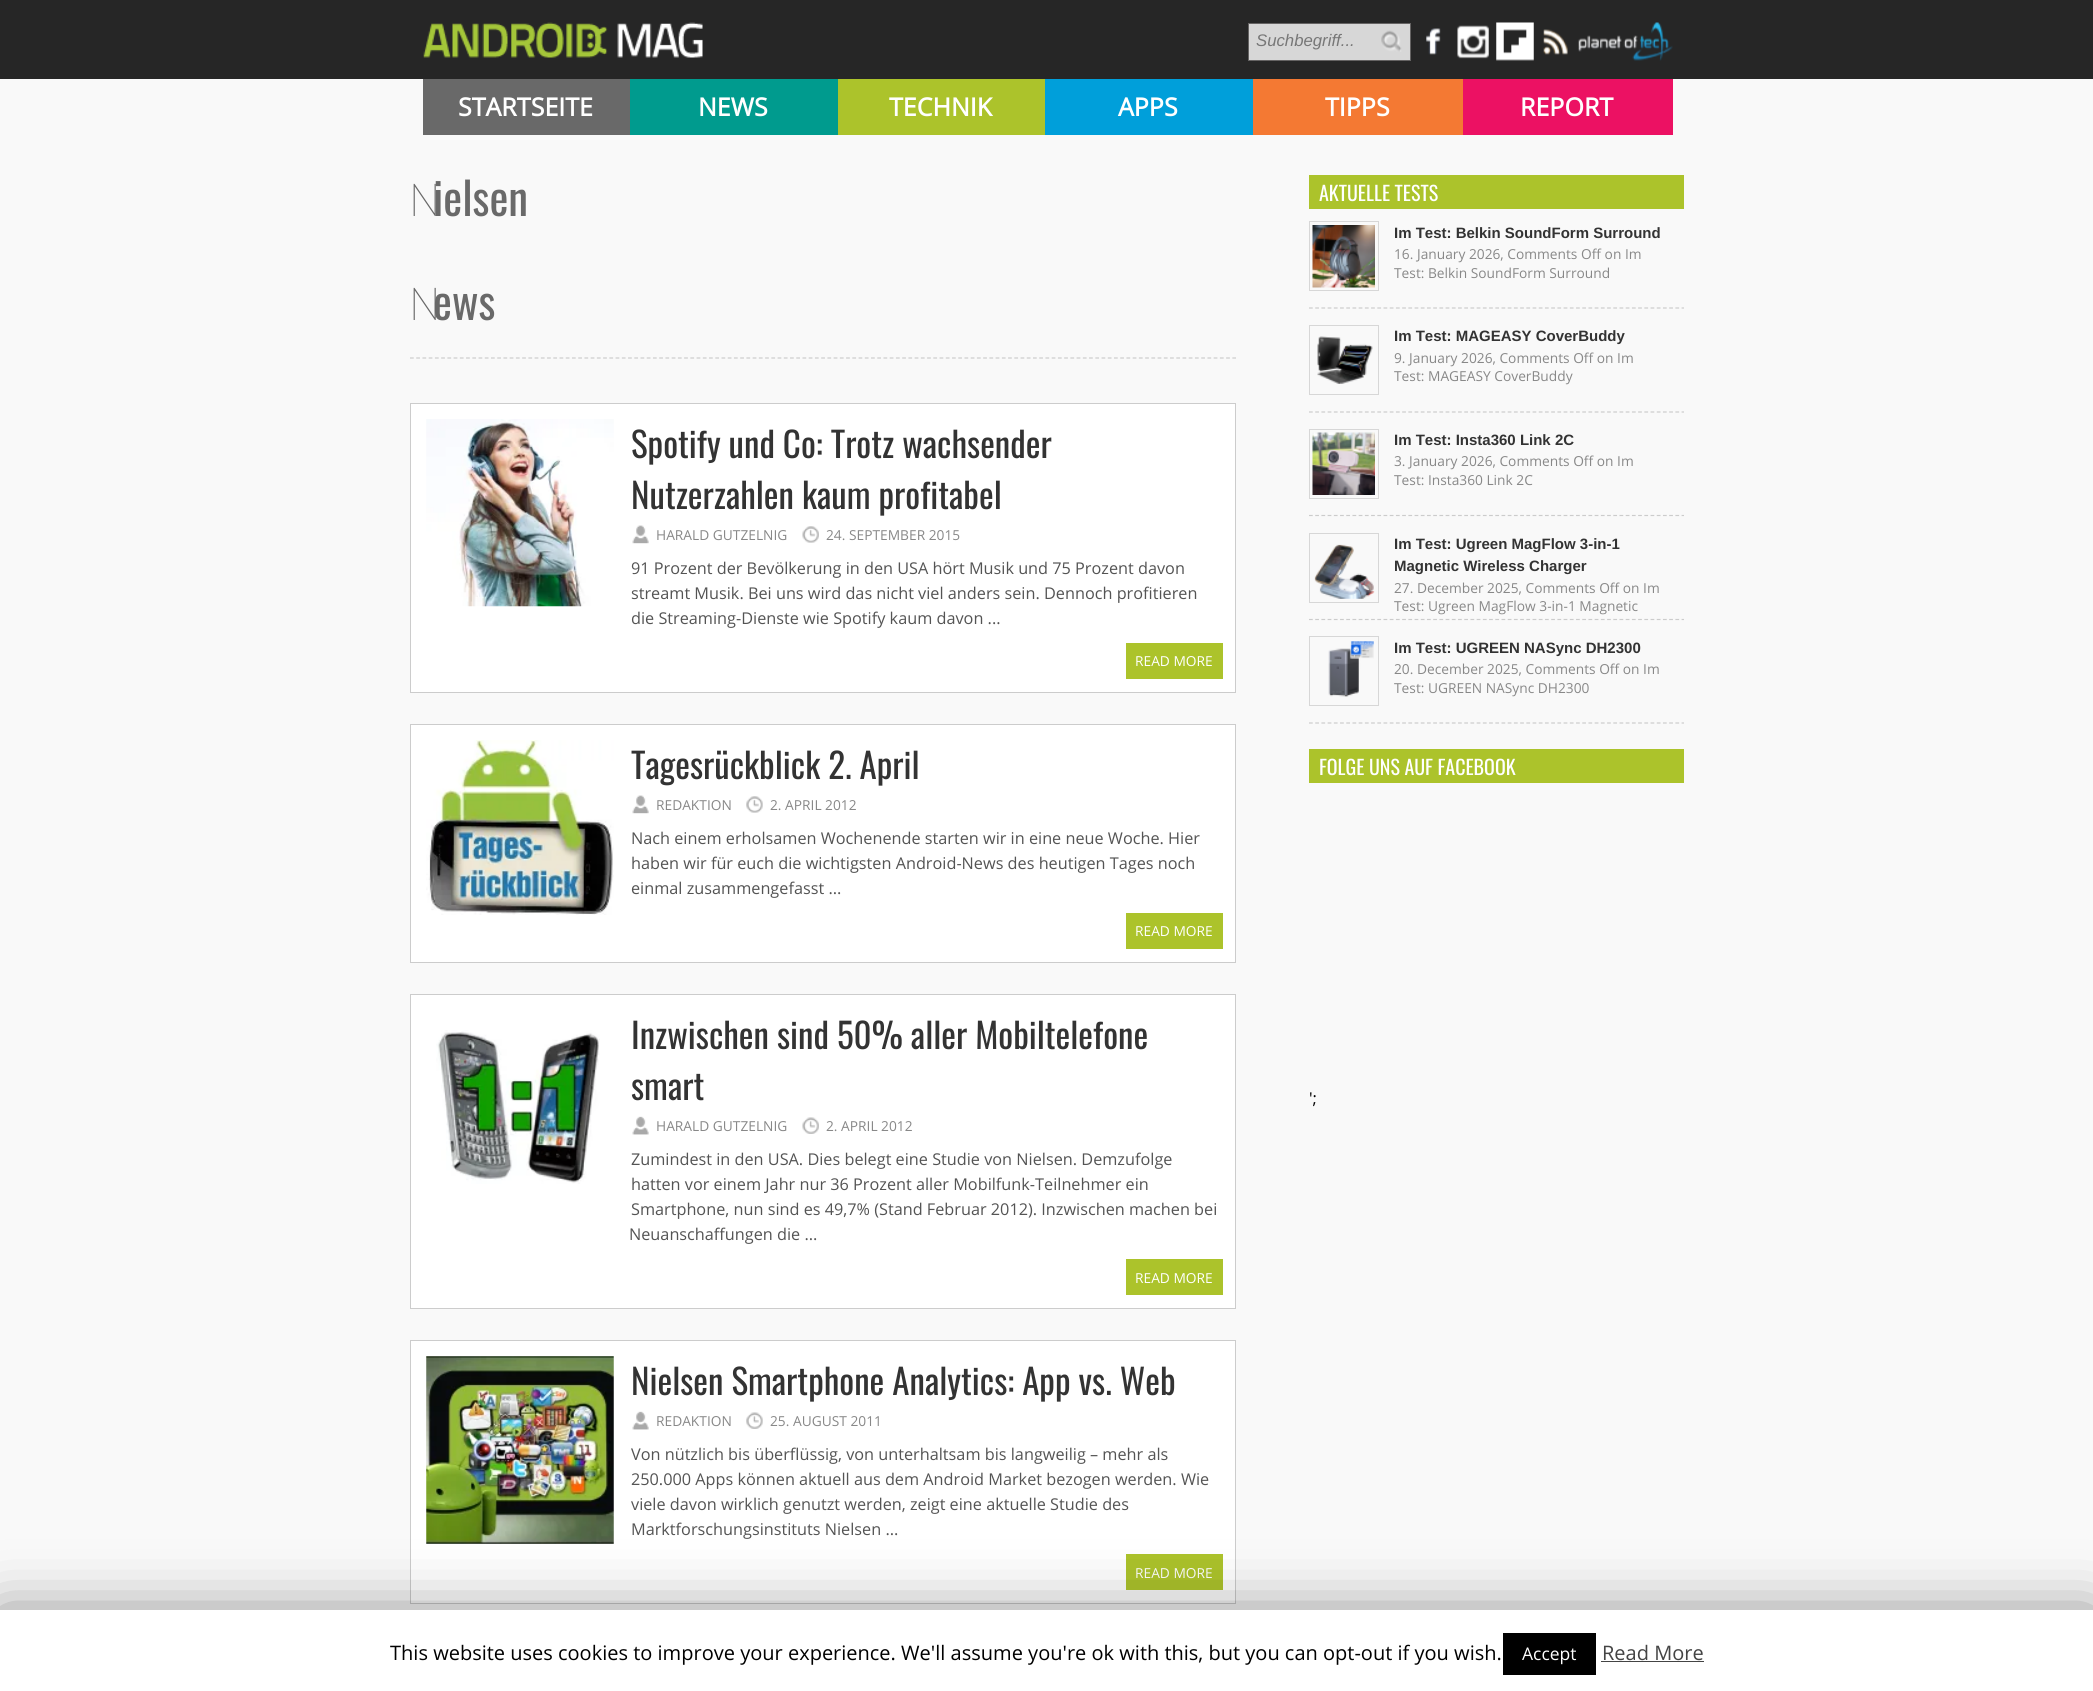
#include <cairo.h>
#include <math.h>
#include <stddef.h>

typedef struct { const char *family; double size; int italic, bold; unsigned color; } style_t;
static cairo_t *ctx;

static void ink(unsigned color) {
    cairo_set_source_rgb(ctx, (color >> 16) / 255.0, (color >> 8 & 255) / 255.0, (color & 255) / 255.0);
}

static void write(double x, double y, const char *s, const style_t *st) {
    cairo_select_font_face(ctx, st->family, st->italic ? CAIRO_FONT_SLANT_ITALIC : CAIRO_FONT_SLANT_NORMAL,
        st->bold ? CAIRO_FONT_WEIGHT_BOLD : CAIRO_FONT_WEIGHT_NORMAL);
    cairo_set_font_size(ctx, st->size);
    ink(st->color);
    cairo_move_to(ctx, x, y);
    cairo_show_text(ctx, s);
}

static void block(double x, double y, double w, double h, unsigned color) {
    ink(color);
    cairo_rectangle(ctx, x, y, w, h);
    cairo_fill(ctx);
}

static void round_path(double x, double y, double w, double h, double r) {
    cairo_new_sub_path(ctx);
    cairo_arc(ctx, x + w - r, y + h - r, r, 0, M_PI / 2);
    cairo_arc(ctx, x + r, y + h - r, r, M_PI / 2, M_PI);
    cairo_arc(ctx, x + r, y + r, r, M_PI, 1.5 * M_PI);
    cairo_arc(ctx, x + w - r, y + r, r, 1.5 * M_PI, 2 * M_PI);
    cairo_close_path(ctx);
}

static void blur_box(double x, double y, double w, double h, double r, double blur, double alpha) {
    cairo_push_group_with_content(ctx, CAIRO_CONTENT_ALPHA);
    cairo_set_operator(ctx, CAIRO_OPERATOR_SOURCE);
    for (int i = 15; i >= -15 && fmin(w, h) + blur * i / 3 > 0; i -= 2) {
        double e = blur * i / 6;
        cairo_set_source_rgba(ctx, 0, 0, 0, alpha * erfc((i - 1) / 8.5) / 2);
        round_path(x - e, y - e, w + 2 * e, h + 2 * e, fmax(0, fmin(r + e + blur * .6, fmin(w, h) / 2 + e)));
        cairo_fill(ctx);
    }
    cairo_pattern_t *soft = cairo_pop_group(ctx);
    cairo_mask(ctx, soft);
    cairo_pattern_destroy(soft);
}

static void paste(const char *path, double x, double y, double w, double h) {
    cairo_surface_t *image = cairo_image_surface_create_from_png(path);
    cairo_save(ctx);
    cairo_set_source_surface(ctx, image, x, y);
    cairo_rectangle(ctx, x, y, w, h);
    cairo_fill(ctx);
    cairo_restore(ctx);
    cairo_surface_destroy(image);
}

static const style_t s1 = {"Liberation Sans", 16.75, 1, 0, 0x777777};
static const style_t s2 = {"Open Sans", 25, 0, 1, 0xffffff};
static const style_t s3 = {"Noto Sans Thin", 45, 0, 0, 0x696969};
static const style_t s4 = {"Oswald", 45, 0, 0, 0x696969};
static const style_t s5 = {"Oswald", 35, 0, 0, 0x333333};
static const style_t s6 = {"Open Sans", 13.75, 0, 0, 0x888888};
static const style_t s7 = {"Open Sans", 16.25, 0, 0, 0x545454};
static const style_t s8 = {"Open Sans", 13.75, 0, 0, 0xffffff};
static const style_t s9 = {"Oswald", 20, 0, 0, 0xffffff};
static const style_t s10 = {"Liberation Sans", 15, 0, 1, 0x333333};
static const style_t s11 = {"Open Sans", 16.25, 0, 0, 0x000000};
static const style_t s12 = {"Open Sans", 20, 0, 0, 0x000000};
static const style_t s13 = {"Open Sans", 17.5, 0, 0, 0xffffff};
static const style_t s14 = {"Open Sans", 20, 0, 0, 0x444444};

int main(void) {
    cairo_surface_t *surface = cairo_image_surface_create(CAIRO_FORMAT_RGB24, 2093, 1691);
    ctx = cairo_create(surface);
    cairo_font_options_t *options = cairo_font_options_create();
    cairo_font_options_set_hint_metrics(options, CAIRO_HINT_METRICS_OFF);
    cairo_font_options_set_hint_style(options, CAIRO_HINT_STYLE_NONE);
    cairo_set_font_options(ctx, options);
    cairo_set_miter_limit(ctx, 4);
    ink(0xf9f9f9);
    cairo_paint(ctx);
    block(0, 0, 2093, 79, 0x262626);
    paste("pic1.png", 423, 22, 280, 36);
    ink(0xd7d7d7);
    cairo_rectangle(ctx, 1248.5, 23.5, 162, 37);
    cairo_fill_preserve(ctx);
    ink(0x656363);
    cairo_set_line_width(ctx, 1);
    cairo_stroke(ctx);
    write(1256, 46, "Suchbegriff...", &s1);
    paste("pic2.png", 1381, 30, 21, 22);
    paste("pic3.png", 1426, 28, 15, 27);
    paste("pic4.png", 1457, 25, 32, 34);
    paste("pic5.png", 1496, 22, 38, 39);
    paste("pic6.png", 1543, 29, 25, 26);
    paste("pic7.png", 1578, 22, 95, 39);
    block(423, 79, 207, 56, 0x696969);
    write(458, 116, "STARTSEITE", &s2);
    block(630, 79, 208, 56, 0x009b8e);
    write(698, 116, "NEWS", &s2);
    block(838, 79, 207, 56, 0xacc32b);
    write(889, 116, "TECHNIK", &s2);
    block(1045, 79, 208, 56, 0x009fda);
    write(1118, 116, "APPS", &s2);
    block(1253, 79, 210, 56, 0xf47933);
    write(1325, 116, "TIPPS", &s2);
    block(1463, 79, 210, 56, 0xec1163);
    write(1520, 116, "REPORT", &s2);
    write(409, 216, "N", &s3);
    write(433, 216, "ielsen", &s4);
    write(409, 320, "N", &s3);
    write(433, 320, "ews", &s4);
    cairo_new_path(ctx);
    cairo_move_to(ctx, 410, 358);
    cairo_line_to(ctx, 1236, 358);
    ink(0xcccccc);
    cairo_set_line_width(ctx, 1.2);
    cairo_set_dash(ctx, (double[]){3.75, 2.48}, 2, 0);
    cairo_stroke(ctx);
    ink(0xffffff);
    cairo_rectangle(ctx, 410.5, 403.5, 825, 289);
    cairo_fill_preserve(ctx);
    ink(0xcccccc);
    cairo_set_line_width(ctx, 1);
    cairo_set_dash(ctx, NULL, 0, 0);
    cairo_stroke(ctx);
    paste("pic8.png", 426, 419, 188, 188);
    write(631, 458, "Spotify und Co: Trotz wachsender", &s5);
    write(631, 509, "Nutzerzahlen kaum profitabel", &s5);
    paste("pic9.png", 632, 525, 17, 19);
    write(656, 540, "HARALD GUTZELNIG", &s6);
    paste("pic10.png", 802, 526, 17, 17);
    write(826, 540, "24. SEPTEMBER 2015", &s6);
    write(631, 574, "91 Prozent der Bevölkerung in den USA hört Musik und 75 Prozent davon", &s7);
    write(631, 599, "streamt Musik. Bei uns wird das nicht viel anders sein. Dennoch profitieren", &s7);
    write(631, 624, "die Streaming-Dienste wie Spotify kaum davon ...", &s7);
    block(1126, 643, 97, 36, 0xacc32b);
    write(1135, 666, "READ MORE", &s8);
    cairo_rectangle(ctx, 410.5, 724.5, 825, 238);
    cairo_fill_preserve(ctx);
    ink(0xcccccc);
    cairo_stroke(ctx);
    paste("pic11.png", 426, 740, 188, 175);
    write(631, 779, "Tagesrückblick 2. April", &s5);
    paste("pic9.png", 632, 795, 17, 19);
    write(656, 810, "REDAKTION", &s6);
    paste("pic12.png", 746, 796, 17, 17);
    write(770, 810, "2. APRIL 2012", &s6);
    write(631, 844, "Nach einem erholsamen Wochenende starten wir in eine neue Woche. Hier", &s7);
    write(631, 869, "haben wir für euch die wichtigsten Android-News des heutigen Tages noch", &s7);
    write(631, 894, "einmal zusammengefasst ...", &s7);
    block(1126, 913, 97, 36, 0xacc32b);
    write(1135, 936, "READ MORE", &s8);
    cairo_rectangle(ctx, 410.5, 994.5, 825, 314);
    cairo_fill_preserve(ctx);
    ink(0xcccccc);
    cairo_stroke(ctx);
    paste("pic13.png", 436, 1030, 164, 154);
    write(631, 1049, "Inzwischen sind 50% aller Mobiltelefone", &s5);
    write(631, 1100, "smart", &s5);
    paste("pic14.png", 632, 1116, 17, 19);
    write(656, 1131, "HARALD GUTZELNIG", &s6);
    paste("pic15.png", 802, 1117, 17, 17);
    write(826, 1131, "2. APRIL 2012", &s6);
    write(631, 1165, "Zumindest in den USA. Dies belegt eine Studie von Nielsen. Demzufolge", &s7);
    write(631, 1190, "hatten vor einem Jahr nur 36 Prozent aller Mobilfunk-Teilnehmer ein", &s7);
    write(631, 1215, "Smartphone, nun sind es 49,7% (Stand Februar 2012). Inzwischen machen bei", &s7);
    write(629, 1240, "Neuanschaffungen die ...", &s7);
    block(1126, 1259, 97, 36, 0xacc32b);
    write(1135, 1283, "READ MORE", &s8);
    cairo_rectangle(ctx, 410.5, 1340.5, 825, 263);
    cairo_fill_preserve(ctx);
    ink(0xcccccc);
    cairo_stroke(ctx);
    paste("pic16.png", 426, 1356, 188, 188);
    write(631, 1395, "Nielsen Smartphone Analytics: App vs. Web", &s5);
    paste("pic14.png", 632, 1411, 17, 19);
    write(656, 1426, "REDAKTION", &s6);
    paste("pic17.png", 746, 1412, 17, 17);
    write(770, 1426, "25. AUGUST 2011", &s6);
    write(631, 1460, "Von nützlich bis überflüssig, von unterhaltsam bis langweilig – mehr als", &s7);
    write(631, 1485, "250.000 Apps können aktuell aus dem Android Market bezogen werden. Wie", &s7);
    write(631, 1510, "viele davon wirklich genutzt werden, zeigt eine aktuelle Studie des", &s7);
    write(631, 1535, "Marktforschungsinstituts Nielsen ...", &s7);
    block(1126, 1554, 97, 36, 0xacc32b);
    write(1135, 1578, "READ MORE", &s8);
    block(1309, 175, 375, 34, 0xacc32b);
    write(1319, 201, "AKTUELLE TESTS", &s9);
    cairo_save(ctx);
    cairo_rectangle(ctx, 1309, 175, 375, 549);
    cairo_clip(ctx);
    cairo_new_path(ctx);
    cairo_move_to(ctx, 1309, 308);
    cairo_line_to(ctx, 1691, 308);
    ink(0xcccccc);
    cairo_set_line_width(ctx, 1.2);
    cairo_set_dash(ctx, (double[]){3.75, 2.46}, 2, 0);
    cairo_stroke(ctx);
    cairo_restore(ctx);
    cairo_rectangle(ctx, 1309.5, 221.5, 69, 69);
    ink(0xd7d7d7);
    cairo_stroke(ctx);
    paste("pic18.png", 1312, 225, 63, 63);
    write(1394, 238, "Im Test: Belkin SoundForm Surround", &s10);
    write(1394, 259, "16. January 2026, Comments Off on Im", &s6);
    write(1394, 278, "Test: Belkin SoundForm Surround", &s6);
    cairo_save(ctx);
    cairo_rectangle(ctx, 1309, 175, 375, 549);
    cairo_clip(ctx);
    cairo_new_path(ctx);
    cairo_move_to(ctx, 1309, 412);
    cairo_line_to(ctx, 1691, 412);
    ink(0xcccccc);
    cairo_set_line_width(ctx, 1.2);
    cairo_set_dash(ctx, (double[]){3.75, 2.46}, 2, 0);
    cairo_stroke(ctx);
    cairo_restore(ctx);
    cairo_rectangle(ctx, 1309.5, 325.5, 69, 69);
    ink(0xd7d7d7);
    cairo_stroke(ctx);
    paste("pic19.png", 1317, 336, 56, 48);
    write(1394, 341, "Im Test: MAGEASY CoverBuddy", &s10);
    write(1394, 363, "9. January 2026, Comments Off on Im", &s6);
    write(1394, 381, "Test: MAGEASY CoverBuddy", &s6);
    cairo_save(ctx);
    cairo_rectangle(ctx, 1309, 175, 375, 549);
    cairo_clip(ctx);
    cairo_new_path(ctx);
    cairo_move_to(ctx, 1309, 515.5);
    cairo_line_to(ctx, 1691, 515.5);
    ink(0xcccccc);
    cairo_set_line_width(ctx, 1.2);
    cairo_set_dash(ctx, (double[]){3.75, 2.46}, 2, 0);
    cairo_stroke(ctx);
    cairo_restore(ctx);
    cairo_rectangle(ctx, 1309.5, 429.5, 69, 69);
    ink(0xd7d7d7);
    cairo_stroke(ctx);
    paste("pic20.png", 1312, 432, 63, 63);
    write(1394, 445, "Im Test: Insta360 Link 2C", &s10);
    write(1394, 466, "3. January 2026, Comments Off on Im", &s6);
    write(1394, 485, "Test: Insta360 Link 2C", &s6);
    cairo_save(ctx);
    cairo_rectangle(ctx, 1309, 175, 375, 549);
    cairo_clip(ctx);
    cairo_new_path(ctx);
    cairo_move_to(ctx, 1309, 619.5);
    cairo_line_to(ctx, 1691, 619.5);
    ink(0xcccccc);
    cairo_set_line_width(ctx, 1.2);
    cairo_set_dash(ctx, (double[]){3.75, 2.46}, 2, 0);
    cairo_stroke(ctx);
    cairo_restore(ctx);
    cairo_rectangle(ctx, 1309.5, 533.5, 69, 69);
    ink(0xd7d7d7);
    cairo_stroke(ctx);
    paste("pic21.png", 1314, 544, 61, 55);
    write(1394, 549, "Im Test: Ugreen MagFlow 3-in-1", &s10);
    write(1394, 571, "Magnetic Wireless Charger", &s10);
    write(1394, 593, "27. December 2025, Comments Off on Im", &s6);
    write(1394, 611, "Test: Ugreen MagFlow 3-in-1 Magnetic", &s6);
    cairo_save(ctx);
    cairo_rectangle(ctx, 1309, 175, 375, 549);
    cairo_clip(ctx);
    cairo_new_path(ctx);
    cairo_move_to(ctx, 1309, 723);
    cairo_line_to(ctx, 1691, 723);
    ink(0xcccccc);
    cairo_set_line_width(ctx, 1.2);
    cairo_set_dash(ctx, (double[]){3.75, 2.46}, 2, 0);
    cairo_stroke(ctx);
    cairo_restore(ctx);
    cairo_rectangle(ctx, 1309.5, 636.5, 69, 69);
    ink(0xd7d7d7);
    cairo_stroke(ctx);
    paste("pic22.png", 1328, 641, 46, 56);
    write(1394, 653, "Im Test: UGREEN NASync DH2300", &s10);
    write(1394, 674, "20. December 2025, Comments Off on Im", &s6);
    write(1394, 693, "Test: UGREEN NASync DH2300", &s6);
    block(1309, 749, 375, 34, 0xacc32b);
    write(1319, 775, "FOLGE UNS AUF FACEBOOK", &s9);
    write(1309, 1104, "';", &s11);
    ink(0x000000);
    blur_box(0, 1616, 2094, 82, 0, 31, 0.5);
    block(0, 1610, 2093, 81, 0xffffff);
    write(390, 1660, "This website uses cookies to improve your experience. We'll assume you're ok with this, but you can opt-out if you wish.", &s12);
    block(1503, 1633, 93, 42, 0x000000);
    write(1522, 1660, "Accept", &s13);
    write(1602, 1660, "Read More", &s14);
    block(1601, 1661, 103, 1, 0x444444);
    cairo_surface_write_to_png(surface, "screenshot.png");
    cairo_font_options_destroy(options);
    cairo_destroy(ctx);
    cairo_surface_destroy(surface);
    return 0;
}
